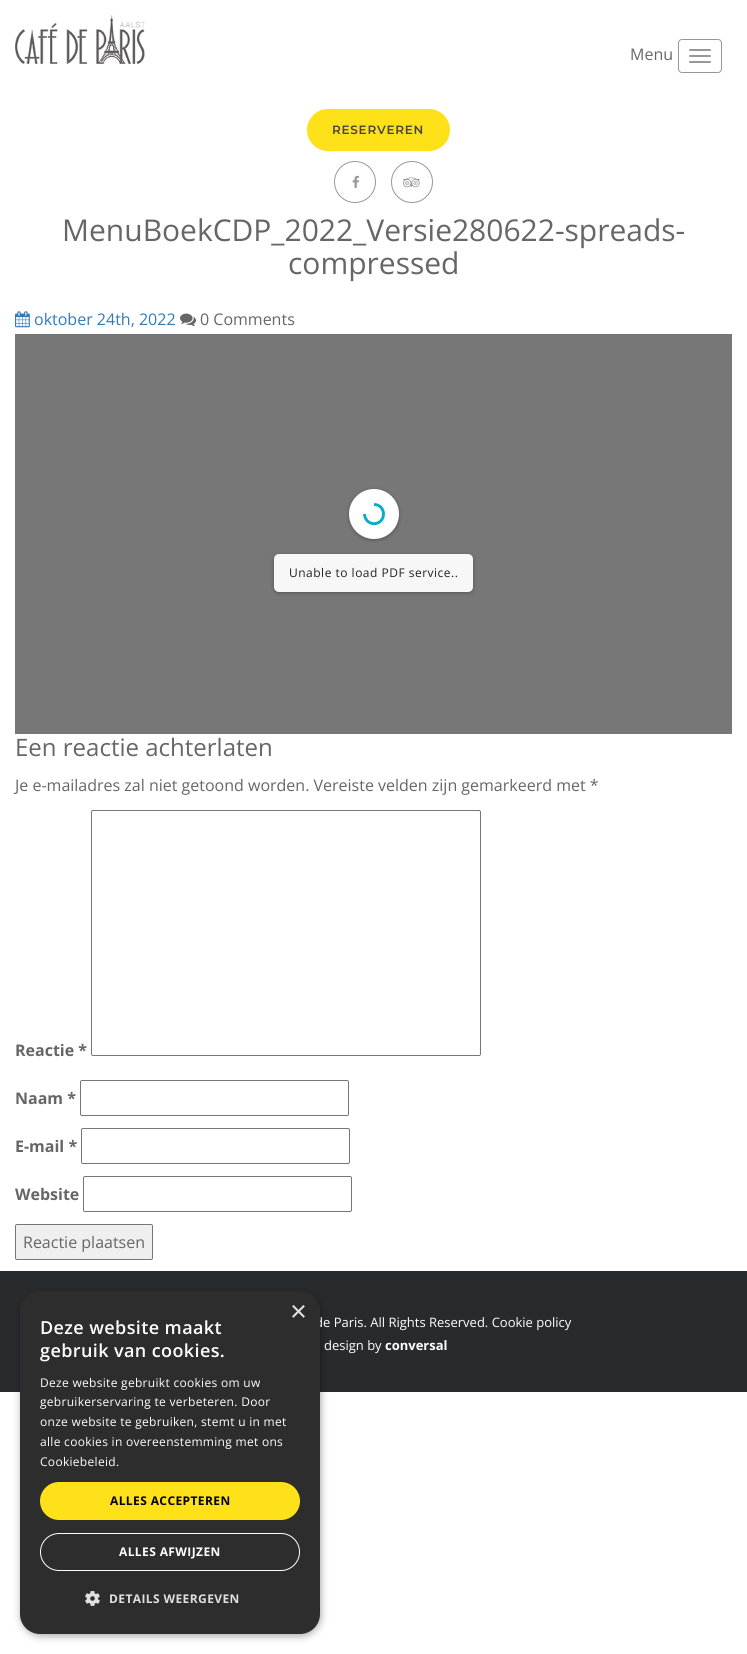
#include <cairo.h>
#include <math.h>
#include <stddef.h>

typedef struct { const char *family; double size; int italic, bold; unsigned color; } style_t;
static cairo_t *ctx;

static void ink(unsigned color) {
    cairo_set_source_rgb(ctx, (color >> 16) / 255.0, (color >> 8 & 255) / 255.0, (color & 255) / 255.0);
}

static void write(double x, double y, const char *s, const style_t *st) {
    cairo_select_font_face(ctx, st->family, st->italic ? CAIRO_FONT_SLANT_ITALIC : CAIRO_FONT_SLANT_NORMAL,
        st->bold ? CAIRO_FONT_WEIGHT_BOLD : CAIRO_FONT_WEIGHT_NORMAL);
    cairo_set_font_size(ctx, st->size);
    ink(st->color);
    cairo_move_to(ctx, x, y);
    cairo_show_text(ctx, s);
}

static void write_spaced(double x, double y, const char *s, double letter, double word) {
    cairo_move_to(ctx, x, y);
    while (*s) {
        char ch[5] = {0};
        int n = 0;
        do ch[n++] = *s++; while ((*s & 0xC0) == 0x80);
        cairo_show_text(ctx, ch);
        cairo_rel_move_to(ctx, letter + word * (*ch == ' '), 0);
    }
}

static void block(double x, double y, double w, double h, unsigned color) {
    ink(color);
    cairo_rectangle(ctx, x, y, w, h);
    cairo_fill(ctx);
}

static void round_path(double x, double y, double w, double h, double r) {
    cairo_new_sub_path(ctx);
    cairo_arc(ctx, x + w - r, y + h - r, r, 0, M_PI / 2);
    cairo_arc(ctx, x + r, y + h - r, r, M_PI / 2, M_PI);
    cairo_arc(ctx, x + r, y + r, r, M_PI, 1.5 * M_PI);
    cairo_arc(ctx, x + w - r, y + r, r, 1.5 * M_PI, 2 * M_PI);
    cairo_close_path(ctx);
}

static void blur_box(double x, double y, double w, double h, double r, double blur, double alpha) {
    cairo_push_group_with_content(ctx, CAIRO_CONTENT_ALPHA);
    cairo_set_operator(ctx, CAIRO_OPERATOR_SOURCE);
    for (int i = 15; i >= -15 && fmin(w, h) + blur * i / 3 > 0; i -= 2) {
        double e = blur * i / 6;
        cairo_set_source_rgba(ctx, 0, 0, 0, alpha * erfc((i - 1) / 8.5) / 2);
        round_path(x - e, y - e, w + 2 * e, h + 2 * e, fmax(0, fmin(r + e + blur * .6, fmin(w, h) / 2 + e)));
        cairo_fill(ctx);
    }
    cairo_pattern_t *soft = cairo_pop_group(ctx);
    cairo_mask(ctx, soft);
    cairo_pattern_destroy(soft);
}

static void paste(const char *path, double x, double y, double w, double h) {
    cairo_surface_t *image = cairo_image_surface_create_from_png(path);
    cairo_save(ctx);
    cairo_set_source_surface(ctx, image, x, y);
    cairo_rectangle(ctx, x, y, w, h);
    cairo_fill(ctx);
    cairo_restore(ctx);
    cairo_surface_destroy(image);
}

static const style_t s1 = {"Open Sans", 16, 0, 0, 0x666666};
static const style_t s2 = {"Open Sans", 30, 0, 0, 0x666666};
static const style_t s3 = {"Open Sans", 16, 0, 0, 0x337ab7};
static const style_t s4 = {"Open Sans", 24, 0, 0, 0x666666};
static const style_t s5 = {"Open Sans", 16, 0, 1, 0x666666};
static const style_t s6 = {"Open Sans", 13, 0, 0, 0xffffff};
static const style_t s7 = {"Liberation Sans", 29, 0, 0, 0xe0e0e0};
static const style_t s8 = {"Open Sans", 13, 0, 1, 0xffffff};

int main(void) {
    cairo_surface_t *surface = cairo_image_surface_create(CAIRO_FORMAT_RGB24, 747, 1654);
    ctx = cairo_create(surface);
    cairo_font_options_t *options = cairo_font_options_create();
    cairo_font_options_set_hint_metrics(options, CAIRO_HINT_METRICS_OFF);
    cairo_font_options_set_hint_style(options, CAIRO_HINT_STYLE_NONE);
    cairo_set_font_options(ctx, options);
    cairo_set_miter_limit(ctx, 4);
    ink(0xffffff);
    cairo_paint(ctx);
    paste("pic1.png", 15, 15, 130, 49);
    write(630, 60, "Menu", &s1);
    round_path(678.5, 39.5, 43, 33, 3.5);
    ink(0x989898);
    cairo_set_line_width(ctx, 1);
    cairo_stroke(ctx);
    round_path(689, 49, 22, 2, 1);
    cairo_fill(ctx);
    round_path(689, 55, 22, 2, 1);
    cairo_fill(ctx);
    round_path(689, 61, 22, 2, 1);
    cairo_fill(ctx);
    ink(0xffe11a);
    round_path(307, 109, 143, 42, 21);
    cairo_fill(ctx);
    cairo_select_font_face(ctx, "Montserrat SemiBold", CAIRO_FONT_SLANT_NORMAL, CAIRO_FONT_WEIGHT_NORMAL);
    cairo_set_font_size(ctx, 12);
    ink(0x444444);
    write_spaced(332, 134, "RESERVEREN", 0.75, 0);
    cairo_new_path(ctx);
    cairo_arc(ctx, 355, 182, 20.5, 0, 2 * M_PI);
    ink(0x989898);
    cairo_stroke(ctx);
    paste("pic2.png", 352, 175, 7, 13);
    cairo_arc(ctx, 412, 182, 20.5, 0, 2 * M_PI);
    cairo_stroke(ctx);
    paste("pic3.png", 403, 177, 17, 11);
    write(62, 241, "MenuBoekCDP_2022_Versie280622-spreads-", &s2);
    write(288, 274, "compressed", &s2);
    paste("pic4.png", 15, 311, 15, 17);
    write(34, 325, "oktober 24th, 2022", &s3);
    paste("pic5.png", 180, 313, 16, 14);
    write(200, 325, "0 Comments", &s1);
    block(15, 334, 717, 400, 0x777777);
    ink(0x000000);
    blur_box(349, 490, 50, 50, 25, 2, 0.3);
    ink(0xffffff);
    cairo_arc(ctx, 374, 514, 25, 0, 2 * M_PI);
    cairo_fill(ctx);
    cairo_new_path(ctx);
    cairo_move_to(ctx, 374, 504.5);
    cairo_curve_to(ctx, 385.5, 504.5, 387, 521, 376, 523.5);
    cairo_curve_to(ctx, 373.5, 524, 371, 523.5, 368.5, 522);
    cairo_curve_to(ctx, 366, 520, 364.5, 517, 364.5, 514);
    ink(0x07abcc);
    cairo_set_line_width(ctx, 2.9);
    cairo_stroke(ctx);
    ink(0x000000);
    blur_box(274, 555, 199, 38, 5, 2, 0.3);
    ink(0xf7f7f7);
    round_path(274, 554, 199, 38, 5);
    cairo_fill(ctx);
    cairo_set_font_size(ctx, 12);
    ink(0x222222);
    write_spaced(289, 577, "Unable to load PDF service..", 0.5, 0);
    write(15, 756, "Een reactie achterlaten", &s4);
    write(15, 791, "Je e-mailadres zal niet getoond worden. Vereiste velden zijn gemarkeerd met *", &s1);
    write(15, 1056, "Reactie *", &s5);
    round_path(91.5, 810.5, 389, 245, 1.5);
    ink(0x767676);
    cairo_set_line_width(ctx, 1);
    cairo_stroke(ctx);
    write(15, 1104, "Naam *", &s5);
    round_path(80.5, 1080.5, 268, 35, 1.5);
    ink(0x767676);
    cairo_stroke(ctx);
    write(15, 1152, "E-mail *", &s5);
    round_path(81.5, 1128.5, 268, 35, 1.5);
    ink(0x767676);
    cairo_stroke(ctx);
    write(15, 1200, "Website", &s5);
    round_path(83.5, 1176.5, 268, 35, 1.5);
    ink(0x767676);
    cairo_stroke(ctx);
    ink(0xefefef);
    round_path(15.5, 1224.5, 137, 35, 1.5);
    cairo_fill_preserve(ctx);
    ink(0x767676);
    cairo_stroke(ctx);
    write(23, 1248, "Reactie plaatsen", &s1);
    block(0, 1271, 747, 121, 0x282b2e);
    ink(0x000000);
    blur_box(21, 1293, 300, 343, 20, 4, 0.35);
    write(315, 1327, "de Paris. All Rights Reserved. Cookie policy", &s6);
    ink(0x2d2d2d);
    round_path(20, 1291, 300, 343, 20);
    cairo_fill(ctx);
    write(290, 1321, "×", &s7);
    cairo_select_font_face(ctx, "Open Sans SemiBold", CAIRO_FONT_SLANT_NORMAL, CAIRO_FONT_WEIGHT_NORMAL);
    cairo_set_font_size(ctx, 18);
    ink(0xffffff);
    write_spaced(40, 1334, "Deze website maakt", 0.4, 0);
    write_spaced(40, 1357, "gebruik van cookies.", 0.4, 0);
    cairo_select_font_face(ctx, "Open Sans", CAIRO_FONT_SLANT_NORMAL, CAIRO_FONT_WEIGHT_NORMAL);
    cairo_set_font_size(ctx, 12);
    write_spaced(40, 1387, "Deze website gebruikt cookies om uw", 0.3, 0);
    write_spaced(40, 1406, "gebruikerservaring te verbeteren. Door", 0.3, 0);
    write_spaced(40, 1426, "onze website te gebruiken, stemt u in met", 0.3, 0);
    write_spaced(40, 1446, "alle cookies in overeenstemming met ons", 0.3, 0);
    write_spaced(40, 1466, "Cookiebeleid.", 0.3, 0);
    ink(0xffe11a);
    round_path(40, 1482, 260, 38, 19);
    cairo_fill(ctx);
    cairo_select_font_face(ctx, "Open Sans", CAIRO_FONT_SLANT_NORMAL, CAIRO_FONT_WEIGHT_BOLD);
    ink(0x000000);
    write_spaced(110, 1505, "ALLES ACCEPTEREN", 0.4, 0);
    round_path(40.5, 1533.5, 259, 37, 18.5);
    ink(0xffffff);
    cairo_stroke(ctx);
    write_spaced(119, 1556, "ALLES AFWIJZEN", 0.4, 0);
    paste("pic6.png", 85, 1591, 15, 15);
    ink(0xe0e0e0);
    write_spaced(109, 1603, "DETAILS WEERGEVEN", 0.4, 0);
    write(324, 1350, "design by", &s6);
    write(385, 1350, "conversal", &s8);
    cairo_surface_write_to_png(surface, "screenshot.png");
    cairo_font_options_destroy(options);
    cairo_destroy(ctx);
    cairo_surface_destroy(surface);
    return 0;
}
